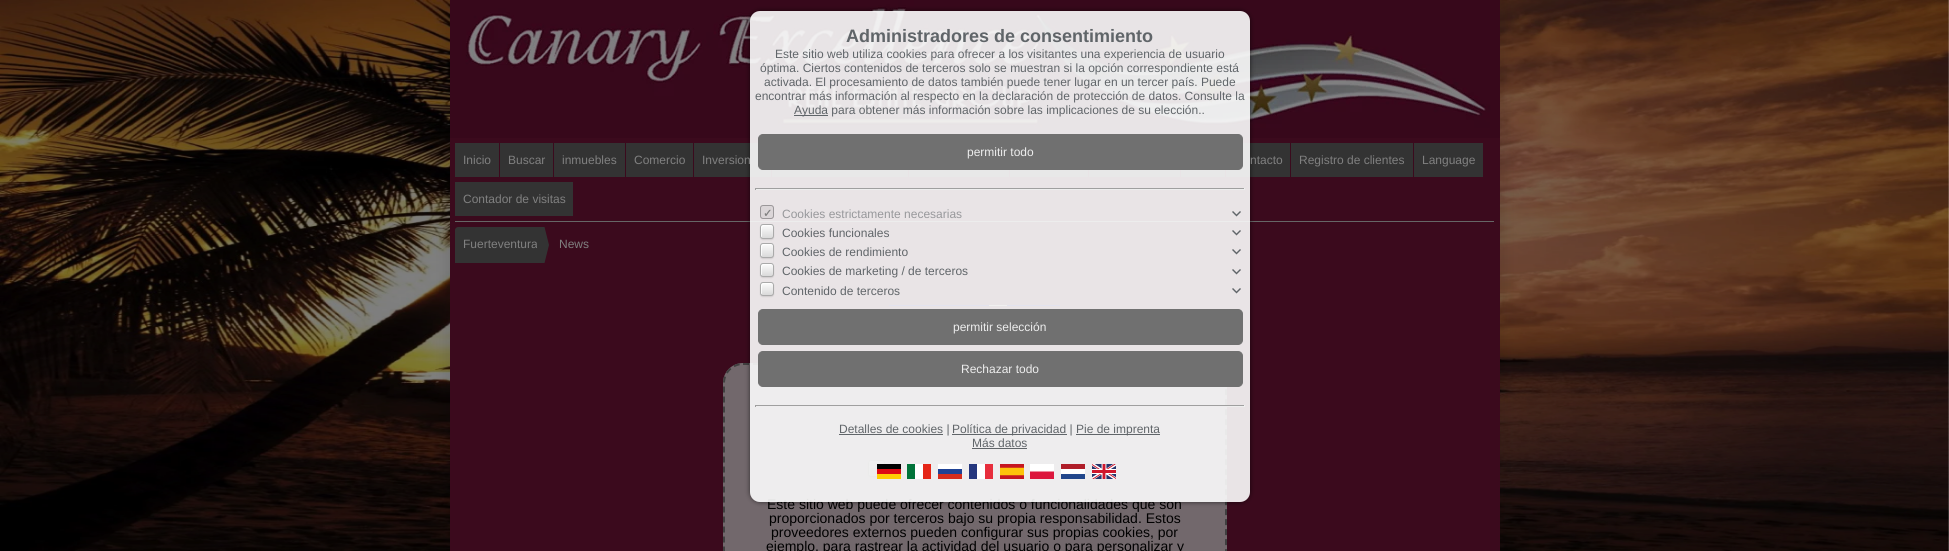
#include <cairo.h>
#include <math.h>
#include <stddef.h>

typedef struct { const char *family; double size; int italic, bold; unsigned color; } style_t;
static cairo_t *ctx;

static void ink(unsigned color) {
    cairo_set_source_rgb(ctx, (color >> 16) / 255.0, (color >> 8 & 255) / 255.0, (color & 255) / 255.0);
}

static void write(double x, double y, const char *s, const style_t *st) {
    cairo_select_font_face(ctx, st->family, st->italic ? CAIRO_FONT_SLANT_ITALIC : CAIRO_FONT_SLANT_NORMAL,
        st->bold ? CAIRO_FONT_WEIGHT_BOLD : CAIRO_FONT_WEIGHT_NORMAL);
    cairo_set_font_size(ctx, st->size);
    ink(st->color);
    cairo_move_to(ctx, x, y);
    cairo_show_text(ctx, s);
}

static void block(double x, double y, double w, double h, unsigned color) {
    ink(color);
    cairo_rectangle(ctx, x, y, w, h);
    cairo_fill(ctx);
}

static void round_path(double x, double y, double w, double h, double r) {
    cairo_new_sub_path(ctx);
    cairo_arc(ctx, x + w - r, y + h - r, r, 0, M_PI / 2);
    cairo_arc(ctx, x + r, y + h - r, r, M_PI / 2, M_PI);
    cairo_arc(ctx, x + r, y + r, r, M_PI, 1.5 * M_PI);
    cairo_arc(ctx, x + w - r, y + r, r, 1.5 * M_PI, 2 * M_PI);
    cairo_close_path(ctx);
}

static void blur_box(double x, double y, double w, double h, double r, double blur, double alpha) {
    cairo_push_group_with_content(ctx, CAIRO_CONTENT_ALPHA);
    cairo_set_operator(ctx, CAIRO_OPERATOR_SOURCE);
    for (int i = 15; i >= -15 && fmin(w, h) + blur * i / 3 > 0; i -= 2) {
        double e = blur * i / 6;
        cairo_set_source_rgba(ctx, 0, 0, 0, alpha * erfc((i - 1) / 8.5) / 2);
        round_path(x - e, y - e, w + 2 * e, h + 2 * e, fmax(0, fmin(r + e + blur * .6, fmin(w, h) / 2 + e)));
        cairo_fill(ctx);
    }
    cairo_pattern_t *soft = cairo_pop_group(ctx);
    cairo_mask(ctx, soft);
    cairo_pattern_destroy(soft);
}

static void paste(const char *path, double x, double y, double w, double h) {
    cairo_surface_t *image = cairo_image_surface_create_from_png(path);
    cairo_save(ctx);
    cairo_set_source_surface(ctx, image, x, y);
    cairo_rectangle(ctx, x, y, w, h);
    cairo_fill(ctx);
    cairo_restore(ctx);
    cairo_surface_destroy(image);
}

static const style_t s1 = {"Liberation Sans", 14, 0, 0, 0x000000};
static const style_t s2 = {"Liberation Sans", 18, 0, 1, 0x606569};
static const style_t s3 = {"Liberation Sans", 12, 0, 0, 0x606569};
static const style_t s4 = {"Liberation Sans", 12, 0, 0, 0xededed};
static const style_t s5 = {"DejaVu Sans", 11, 0, 1, 0x808080};
static const style_t s6 = {"Liberation Sans", 12, 0, 0, 0x97989b};
static const style_t s7 = {"Liberation Sans", 12, 0, 0, 0x808080};

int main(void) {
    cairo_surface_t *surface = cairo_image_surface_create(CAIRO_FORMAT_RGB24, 1949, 551);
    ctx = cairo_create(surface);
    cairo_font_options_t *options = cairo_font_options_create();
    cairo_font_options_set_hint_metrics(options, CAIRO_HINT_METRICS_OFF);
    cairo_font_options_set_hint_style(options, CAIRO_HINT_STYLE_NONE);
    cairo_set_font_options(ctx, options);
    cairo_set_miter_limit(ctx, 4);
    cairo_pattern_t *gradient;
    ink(0xffffff);
    cairo_paint(ctx);
    paste("pic1.png", 0, 0, 1949, 551);
    ink(0x000000);
    blur_box(450, 0, 1050, 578, 0, 9, 0.14);
    block(450, 138, 1050, 413, 0x3b0a1d);
    paste("pic11.png", 450, 0, 1050, 138);
    block(694, 143, 77, 34, 0x333333);
    block(1226, 143, 64, 34, 0x333333);
    block(772, 170, 136, 7, 0x333333);
    block(909, 170, 100, 7, 0x333333);
    block(1010, 170, 78, 7, 0x333333);
    block(1089, 170, 91, 7, 0x333333);
    block(1181, 170, 44, 7, 0x333333);
    block(455, 221, 1039, 1, 0x666666);
    block(889, 305, 100, 1, 0x000077);
    block(989, 305, 18, 1, 0x808080);
    block(1007, 305, 53, 1, 0x000077);
    ink(0x72686c);
    round_path(723, 363, 504, 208, 20);
    cairo_fill(ctx);
    cairo_new_path(ctx);
    cairo_move_to(ctx, 743, 364);
    cairo_line_to(ctx, 1207, 364);
    cairo_curve_to(ctx, 1217.5, 364, 1226, 372.5, 1226, 383);
    cairo_line_to(ctx, 1226, 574);
    cairo_curve_to(ctx, 1226, 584.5, 1217.5, 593, 1207, 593);
    cairo_line_to(ctx, 743, 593);
    cairo_curve_to(ctx, 732.5, 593, 724, 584.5, 724, 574);
    cairo_line_to(ctx, 724, 383);
    cairo_curve_to(ctx, 724, 372.5, 732.5, 364, 743, 364);
    cairo_close_path(ctx);
    ink(0x404040);
    cairo_set_dash(ctx, (double[]){6, 4}, 2, 0);
    cairo_stroke(ctx);
    ink(0x000000);
    blur_box(868, 461, 17, 17, 3, 0.5, 0.1);
    cairo_save(ctx);
    round_path(868, 460, 17, 17, 3);
    cairo_clip(ctx);
    gradient = cairo_pattern_create_linear(877, 461, 877, 476);
    cairo_pattern_add_color_stop_rgba(gradient, 0, 0.494, 0.494, 0.494, 1);
    cairo_pattern_add_color_stop_rgba(gradient, 1, 0.427, 0.427, 0.427, 1);
    cairo_set_source(ctx, gradient);
    cairo_pattern_destroy(gradient);
    cairo_rectangle(ctx, 868, 461, 17, 15);
    cairo_fill(ctx);
    cairo_restore(ctx);
    ink(0x808080);
    cairo_new_path(ctx);
    cairo_move_to(ctx, 872, 462);
    cairo_curve_to(ctx, 874.5, 462, 881.5, 461.5, 884, 462.5);
    cairo_curve_to(ctx, 883.5, 461.5, 883, 461, 882, 461);
    cairo_line_to(ctx, 871, 461);
    cairo_curve_to(ctx, 870, 461, 869, 462, 869, 463);
    cairo_line_to(ctx, 869, 474);
    cairo_curve_to(ctx, 869, 475, 869.5, 475.5, 870.5, 476);
    cairo_curve_to(ctx, 869.5, 474.5, 870, 464.5, 870, 463.5);
    cairo_curve_to(ctx, 870.5, 462.5, 871, 462, 872, 462);
    cairo_close_path(ctx);
    cairo_fill(ctx);
    round_path(868.5, 460.5, 16, 16, 2.5);
    ink(0x555555);
    cairo_set_line_width(ctx, 1);
    cairo_set_dash(ctx, NULL, 0, 0);
    cairo_stroke(ctx);
    cairo_save(ctx);
    cairo_set_fill_rule(ctx, CAIRO_FILL_RULE_EVEN_ODD);
    cairo_new_path(ctx);
    cairo_move_to(ctx, 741, 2);
    cairo_line_to(ctx, 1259, 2);
    cairo_line_to(ctx, 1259, 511);
    cairo_line_to(ctx, 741, 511);
    cairo_close_path(ctx);
    cairo_move_to(ctx, 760, 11);
    cairo_line_to(ctx, 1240, 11);
    cairo_curve_to(ctx, 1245.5, 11, 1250, 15.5, 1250, 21);
    cairo_line_to(ctx, 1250, 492);
    cairo_curve_to(ctx, 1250, 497.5, 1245.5, 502, 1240, 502);
    cairo_line_to(ctx, 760, 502);
    cairo_curve_to(ctx, 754.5, 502, 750, 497.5, 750, 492);
    cairo_line_to(ctx, 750, 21);
    cairo_curve_to(ctx, 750, 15.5, 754.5, 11, 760, 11);
    cairo_close_path(ctx);
    cairo_clip(ctx);
    ink(0x000000);
    blur_box(750, 11, 500, 491, 10, 2.5, 0.6);
    cairo_restore(ctx);
    write(767, 509, "Este sitio web puede ofrecer contenidos o funcionalidades que son", &s1);
    cairo_set_source_rgba(ctx, 0.988, 0.988, 0.988, 0.9);
    round_path(750, 11, 500, 491, 10);
    cairo_fill(ctx);
    write(846, 42, "Administradores de consentimiento", &s2);
    write(775, 58, "Este sitio web utiliza cookies para ofrecer a los visitantes una experiencia de usuario", &s3);
    write(760, 72, "óptima. Ciertos contenidos de terceros solo se muestran si la opción correspondiente está", &s3);
    write(764, 86, "activada. El procesamiento de datos también puede tener lugar en un tercer país. Puede", &s3);
    write(755, 100, "encontrar más información al respecto en la declaración de protección de datos. Consulte la", &s3);
    block(794, 115, 34, 1, 0x606569);
    write(794, 114, "Ayuda para obtener más información sobre las implicaciones de su elección..", &s3);
    ink(0x707070);
    round_path(758.5, 134.5, 484, 35, 4.5);
    cairo_fill_preserve(ctx);
    cairo_stroke(ctx);
    write(967, 156, "permitir todo", &s4);
    block(755, 188, 490, 1, 0x9f9f9f);
    block(1244, 188, 1, 2, 0xeeeeee);
    block(755, 189, 490, 1, 0xeeeeee);
    block(755, 188, 1, 2, 0x9f9f9f);
    ink(0xdbd6d8);
    round_path(760, 205, 14, 14, 3);
    cairo_fill(ctx);
    round_path(760.5, 205.5, 13, 13, 2.5);
    cairo_set_source_rgba(ctx, 0.365, 0.357, 0.361, 0.5);
    cairo_stroke(ctx);
    write(763, 217, "✓", &s5);
    write(782, 218, "Cookies estrictamente necesarias", &s6);
    paste("pic2.png", 1232, 211, 9, 6);
    ink(0x000000);
    blur_box(760, 225, 14, 15, 3, 0.5, 0.1);
    cairo_save(ctx);
    round_path(760, 224, 14, 15, 3);
    cairo_clip(ctx);
    gradient = cairo_pattern_create_linear(767, 225, 767, 238);
    cairo_pattern_add_color_stop_rgba(gradient, 0, 0.988, 0.988, 0.988, 1);
    cairo_pattern_add_color_stop_rgba(gradient, 1, 0.855, 0.855, 0.855, 1);
    cairo_set_source(ctx, gradient);
    cairo_pattern_destroy(gradient);
    cairo_rectangle(ctx, 760, 225, 14, 13);
    cairo_fill(ctx);
    cairo_restore(ctx);
    ink(0xffffff);
    cairo_new_path(ctx);
    cairo_move_to(ctx, 764, 226);
    cairo_curve_to(ctx, 766, 226, 771.5, 225, 773, 226);
    cairo_curve_to(ctx, 772.5, 225.5, 772, 225, 771, 225);
    cairo_line_to(ctx, 763, 225);
    cairo_curve_to(ctx, 762, 225, 761, 226, 761, 227);
    cairo_line_to(ctx, 761, 236);
    cairo_curve_to(ctx, 761, 237, 761.5, 237.5, 762, 238);
    cairo_curve_to(ctx, 762, 237, 761.5, 228, 762, 227);
    cairo_curve_to(ctx, 762.5, 226.5, 763, 226, 764, 226);
    cairo_close_path(ctx);
    cairo_fill(ctx);
    round_path(760.5, 224.5, 13, 14, 2.5);
    ink(0xaaaaaa);
    cairo_stroke(ctx);
    write(782, 237, "Cookies funcionales", &s3);
    paste("pic2.png", 1232, 230, 9, 6);
    ink(0x000000);
    blur_box(760, 244, 14, 15, 3, 0.5, 0.1);
    cairo_save(ctx);
    round_path(760, 243, 14, 15, 3);
    cairo_clip(ctx);
    gradient = cairo_pattern_create_linear(767, 244, 767, 257);
    cairo_pattern_add_color_stop_rgba(gradient, 0, 0.988, 0.988, 0.988, 1);
    cairo_pattern_add_color_stop_rgba(gradient, 1, 0.855, 0.855, 0.855, 1);
    cairo_set_source(ctx, gradient);
    cairo_pattern_destroy(gradient);
    cairo_rectangle(ctx, 760, 244, 14, 13);
    cairo_fill(ctx);
    cairo_restore(ctx);
    ink(0xffffff);
    cairo_new_path(ctx);
    cairo_move_to(ctx, 764, 245);
    cairo_curve_to(ctx, 766, 245, 771.5, 244, 773, 245.5);
    cairo_curve_to(ctx, 772.5, 244.5, 772, 244, 771, 244);
    cairo_line_to(ctx, 763, 244);
    cairo_curve_to(ctx, 762, 244, 761, 245, 761, 246);
    cairo_line_to(ctx, 761, 255);
    cairo_curve_to(ctx, 761, 256, 761.5, 256.5, 762, 257);
    cairo_curve_to(ctx, 761.5, 256, 762, 247, 762, 246);
    cairo_curve_to(ctx, 762.5, 245.5, 763, 245, 764, 245);
    cairo_close_path(ctx);
    cairo_fill(ctx);
    round_path(760.5, 243.5, 13, 14, 2.5);
    ink(0xaaaaaa);
    cairo_stroke(ctx);
    write(782, 256, "Cookies de rendimiento", &s3);
    paste("pic2.png", 1232, 249, 9, 6);
    ink(0x000000);
    blur_box(760, 264, 14, 14, 3, 0.5, 0.1);
    cairo_save(ctx);
    round_path(760, 263, 14, 14, 3);
    cairo_clip(ctx);
    gradient = cairo_pattern_create_linear(767, 264, 767, 276);
    cairo_pattern_add_color_stop_rgba(gradient, 0, 0.988, 0.988, 0.988, 1);
    cairo_pattern_add_color_stop_rgba(gradient, 1, 0.855, 0.855, 0.855, 1);
    cairo_set_source(ctx, gradient);
    cairo_pattern_destroy(gradient);
    cairo_rectangle(ctx, 760, 264, 14, 12);
    cairo_fill(ctx);
    cairo_restore(ctx);
    ink(0xffffff);
    cairo_new_path(ctx);
    cairo_move_to(ctx, 764, 265);
    cairo_curve_to(ctx, 766, 265, 771.5, 264, 773, 265.5);
    cairo_curve_to(ctx, 772.5, 264.5, 772, 264, 771, 264);
    cairo_line_to(ctx, 763, 264);
    cairo_curve_to(ctx, 762, 264, 761, 265, 761, 266);
    cairo_line_to(ctx, 761, 274);
    cairo_curve_to(ctx, 761, 275, 761.5, 275.5, 762, 276);
    cairo_curve_to(ctx, 761.5, 274.5, 762, 266.5, 762, 266);
    cairo_curve_to(ctx, 762.5, 265.5, 763, 265, 764, 265);
    cairo_close_path(ctx);
    cairo_fill(ctx);
    round_path(760.5, 263.5, 13, 13, 2.5);
    ink(0xaaaaaa);
    cairo_stroke(ctx);
    write(782, 275, "Cookies de marketing / de terceros", &s3);
    paste("pic2.png", 1232, 269, 9, 6);
    ink(0x000000);
    blur_box(760, 283, 14, 14, 3, 0.5, 0.1);
    cairo_save(ctx);
    round_path(760, 282, 14, 14, 3);
    cairo_clip(ctx);
    gradient = cairo_pattern_create_linear(767, 283, 767, 295);
    cairo_pattern_add_color_stop_rgba(gradient, 0, 0.988, 0.988, 0.988, 1);
    cairo_pattern_add_color_stop_rgba(gradient, 1, 0.855, 0.855, 0.855, 1);
    cairo_set_source(ctx, gradient);
    cairo_pattern_destroy(gradient);
    cairo_rectangle(ctx, 760, 283, 14, 12);
    cairo_fill(ctx);
    cairo_restore(ctx);
    ink(0xffffff);
    cairo_new_path(ctx);
    cairo_move_to(ctx, 764, 284);
    cairo_curve_to(ctx, 766, 284, 771.5, 283, 773, 284.5);
    cairo_curve_to(ctx, 772.5, 283.5, 772, 283, 771, 283);
    cairo_line_to(ctx, 763, 283);
    cairo_curve_to(ctx, 762, 283, 761, 284, 761, 285);
    cairo_line_to(ctx, 761, 293);
    cairo_curve_to(ctx, 761, 294, 761.5, 294.5, 762, 295);
    cairo_curve_to(ctx, 761.5, 293.5, 762, 285.5, 762, 285);
    cairo_curve_to(ctx, 762.5, 284.5, 763, 284, 764, 284);
    cairo_close_path(ctx);
    cairo_fill(ctx);
    round_path(760.5, 282.5, 13, 13, 2.5);
    ink(0xaaaaaa);
    cairo_stroke(ctx);
    write(782, 295, "Contenido de terceros", &s3);
    paste("pic2.png", 1232, 288, 9, 6);
    ink(0x707070);
    round_path(758.5, 309.5, 484, 35, 4.5);
    cairo_fill_preserve(ctx);
    cairo_stroke(ctx);
    write(953, 331, "permitir selección", &s4);
    ink(0x707070);
    round_path(758.5, 351.5, 484, 35, 4.5);
    cairo_fill_preserve(ctx);
    cairo_stroke(ctx);
    write(961, 373, "Rechazar todo", &s4);
    block(755, 405, 490, 1, 0x9f9f9f);
    block(1244, 405, 1, 2, 0xeeeeee);
    block(1227, 406, 18, 1, 0xeeeeee);
    block(755, 405, 1, 2, 0x9f9f9f);
    block(839, 434, 104, 1, 0x606569);
    write(839, 433, "Detalles de cookies |", &s3);
    block(952, 434, 115, 1, 0x606569);
    write(952, 433, "Política de privacidad |", &s3);
    block(1076, 434, 84, 1, 0x606569);
    write(1076, 433, "Pie de imprenta", &s3);
    write(972, 447, "Más datos", &s3);
    block(972, 448, 55, 1, 0x606569);
    paste("pic3.png", 877, 464, 24, 15);
    paste("pic4.png", 907, 464, 24, 15);
    paste("pic5.png", 938, 464, 24, 15);
    paste("pic6.png", 969, 464, 24, 15);
    paste("pic7.png", 1000, 464, 24, 15);
    paste("pic8.png", 1030, 464, 24, 15);
    paste("pic9.png", 1061, 464, 24, 15);
    paste("pic10.png", 1092, 464, 24, 15);
    block(455, 143, 44, 34, 0x333333);
    write(463, 164, "Inicio", &s7);
    block(500, 143, 53, 34, 0x333333);
    write(508, 164, "Buscar", &s7);
    block(554, 143, 71, 34, 0x333333);
    write(562, 164, "inmuebles", &s7);
    block(626, 143, 67, 34, 0x333333);
    write(634, 164, "Comercio", &s7);
    write(702, 164, "Inversion", &s7);
    write(1250, 164, "ntacto", &s7);
    block(1291, 143, 122, 34, 0x333333);
    write(1299, 164, "Registro de clientes", &s7);
    block(1414, 143, 69, 34, 0x333333);
    write(1422, 164, "Language", &s7);
    block(455, 182, 118, 34, 0x333333);
    write(463, 203, "Contador de visitas", &s7);
    ink(0x333333);
    cairo_new_path(ctx);
    cairo_move_to(ctx, 458, 227);
    cairo_line_to(ctx, 537, 227);
    cairo_line_to(ctx, 537, 263);
    cairo_line_to(ctx, 455, 263);
    cairo_line_to(ctx, 455, 230);
    cairo_curve_to(ctx, 455, 228.5, 456.5, 227, 458, 227);
    cairo_close_path(ctx);
    cairo_fill(ctx);
    write(463, 248, "Fuerteventura", &s7);
    ink(0x333333);
    cairo_new_path(ctx);
    cairo_move_to(ctx, 544.5, 227);
    cairo_line_to(ctx, 549, 245);
    cairo_line_to(ctx, 544.5, 263);
    cairo_line_to(ctx, 537, 263);
    cairo_line_to(ctx, 537, 227);
    cairo_close_path(ctx);
    cairo_fill(ctx);
    write(559, 248, "News", &s7);
    write(769, 523, "proporcionados por terceros bajo su propia responsabilidad. Estos", &s1);
    write(771, 537, "proveedores externos pueden configurar sus propias cookies, por", &s1);
    write(766, 551, "ejemplo, para rastrear la actividad del usuario o para personalizar y", &s1);
    cairo_surface_write_to_png(surface, "screenshot.png");
    cairo_font_options_destroy(options);
    cairo_destroy(ctx);
    cairo_surface_destroy(surface);
    return 0;
}
